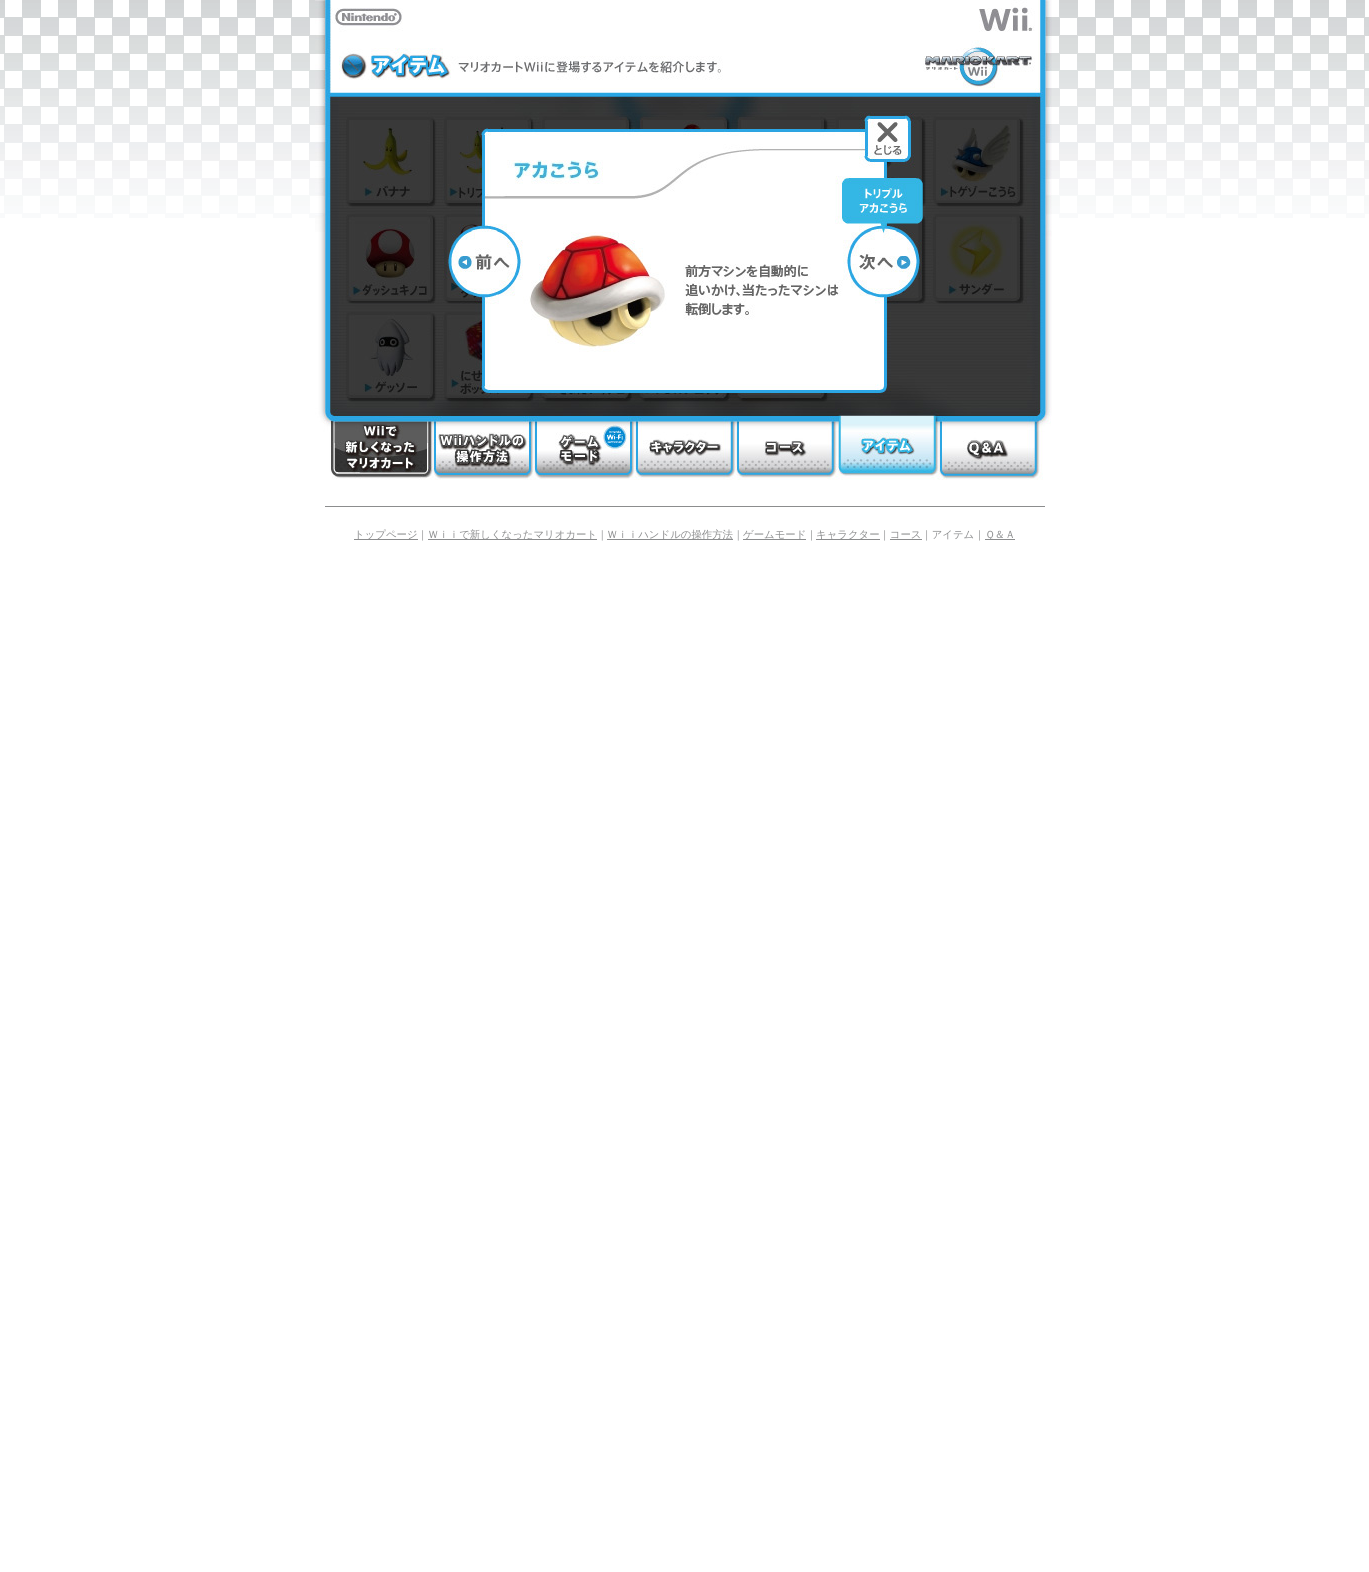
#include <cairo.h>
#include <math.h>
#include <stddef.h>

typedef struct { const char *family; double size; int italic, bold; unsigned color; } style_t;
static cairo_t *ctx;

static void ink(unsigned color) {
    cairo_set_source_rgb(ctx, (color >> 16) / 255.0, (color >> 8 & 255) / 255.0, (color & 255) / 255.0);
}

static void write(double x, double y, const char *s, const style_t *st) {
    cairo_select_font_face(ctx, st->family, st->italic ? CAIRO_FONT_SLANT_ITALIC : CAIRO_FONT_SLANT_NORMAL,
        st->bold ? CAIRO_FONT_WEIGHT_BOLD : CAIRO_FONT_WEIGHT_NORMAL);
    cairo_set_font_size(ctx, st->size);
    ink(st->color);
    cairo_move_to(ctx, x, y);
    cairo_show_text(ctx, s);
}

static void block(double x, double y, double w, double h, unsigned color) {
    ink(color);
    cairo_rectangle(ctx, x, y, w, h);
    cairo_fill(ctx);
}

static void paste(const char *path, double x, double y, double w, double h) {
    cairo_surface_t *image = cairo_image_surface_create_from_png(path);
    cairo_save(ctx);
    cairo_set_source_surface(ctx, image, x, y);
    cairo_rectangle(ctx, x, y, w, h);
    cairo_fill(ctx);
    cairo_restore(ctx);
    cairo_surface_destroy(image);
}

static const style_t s1 = {"WenQuanYi Zen Hei Medium", 10.4, 0, 0, 0x8c8d8e};

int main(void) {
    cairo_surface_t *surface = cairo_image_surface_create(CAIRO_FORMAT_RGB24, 1369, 1572);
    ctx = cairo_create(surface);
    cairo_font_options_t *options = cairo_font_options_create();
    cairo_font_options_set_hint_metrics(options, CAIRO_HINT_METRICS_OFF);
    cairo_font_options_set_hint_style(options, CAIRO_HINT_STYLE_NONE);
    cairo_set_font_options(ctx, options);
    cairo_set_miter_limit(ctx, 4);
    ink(0xffffff);
    cairo_paint(ctx);
    paste("pic1.png", 0, 0, 1369, 218);
    paste("pic2.png", 315, 0, 737, 480);
    block(325, 506, 720, 1, 0x8c8d8e);
    block(354, 539, 64, 1, 0x8c8d8e);
    write(354, 538, "トップページ｜", &s1);
    block(428, 539, 169, 1, 0x8c8d8e);
    write(428, 538, "Ｗｉｉで新しくなったマリオカート｜", &s1);
    block(607, 539, 126, 1, 0x8c8d8e);
    write(607, 538, "Ｗｉｉハンドルの操作方法｜", &s1);
    block(743, 539, 63, 1, 0x8c8d8e);
    write(743, 538, "ゲームモード｜", &s1);
    block(816, 539, 64, 1, 0x8c8d8e);
    write(816, 538, "キャラクター｜コース｜アイテム｜", &s1);
    block(985, 539, 30, 1, 0x8c8d8e);
    write(985, 538, "Ｑ＆Ａ", &s1);
    block(890, 539, 32, 1, 0x8c8d8e);
    cairo_surface_write_to_png(surface, "screenshot.png");
    cairo_font_options_destroy(options);
    cairo_destroy(ctx);
    cairo_surface_destroy(surface);
    return 0;
}
